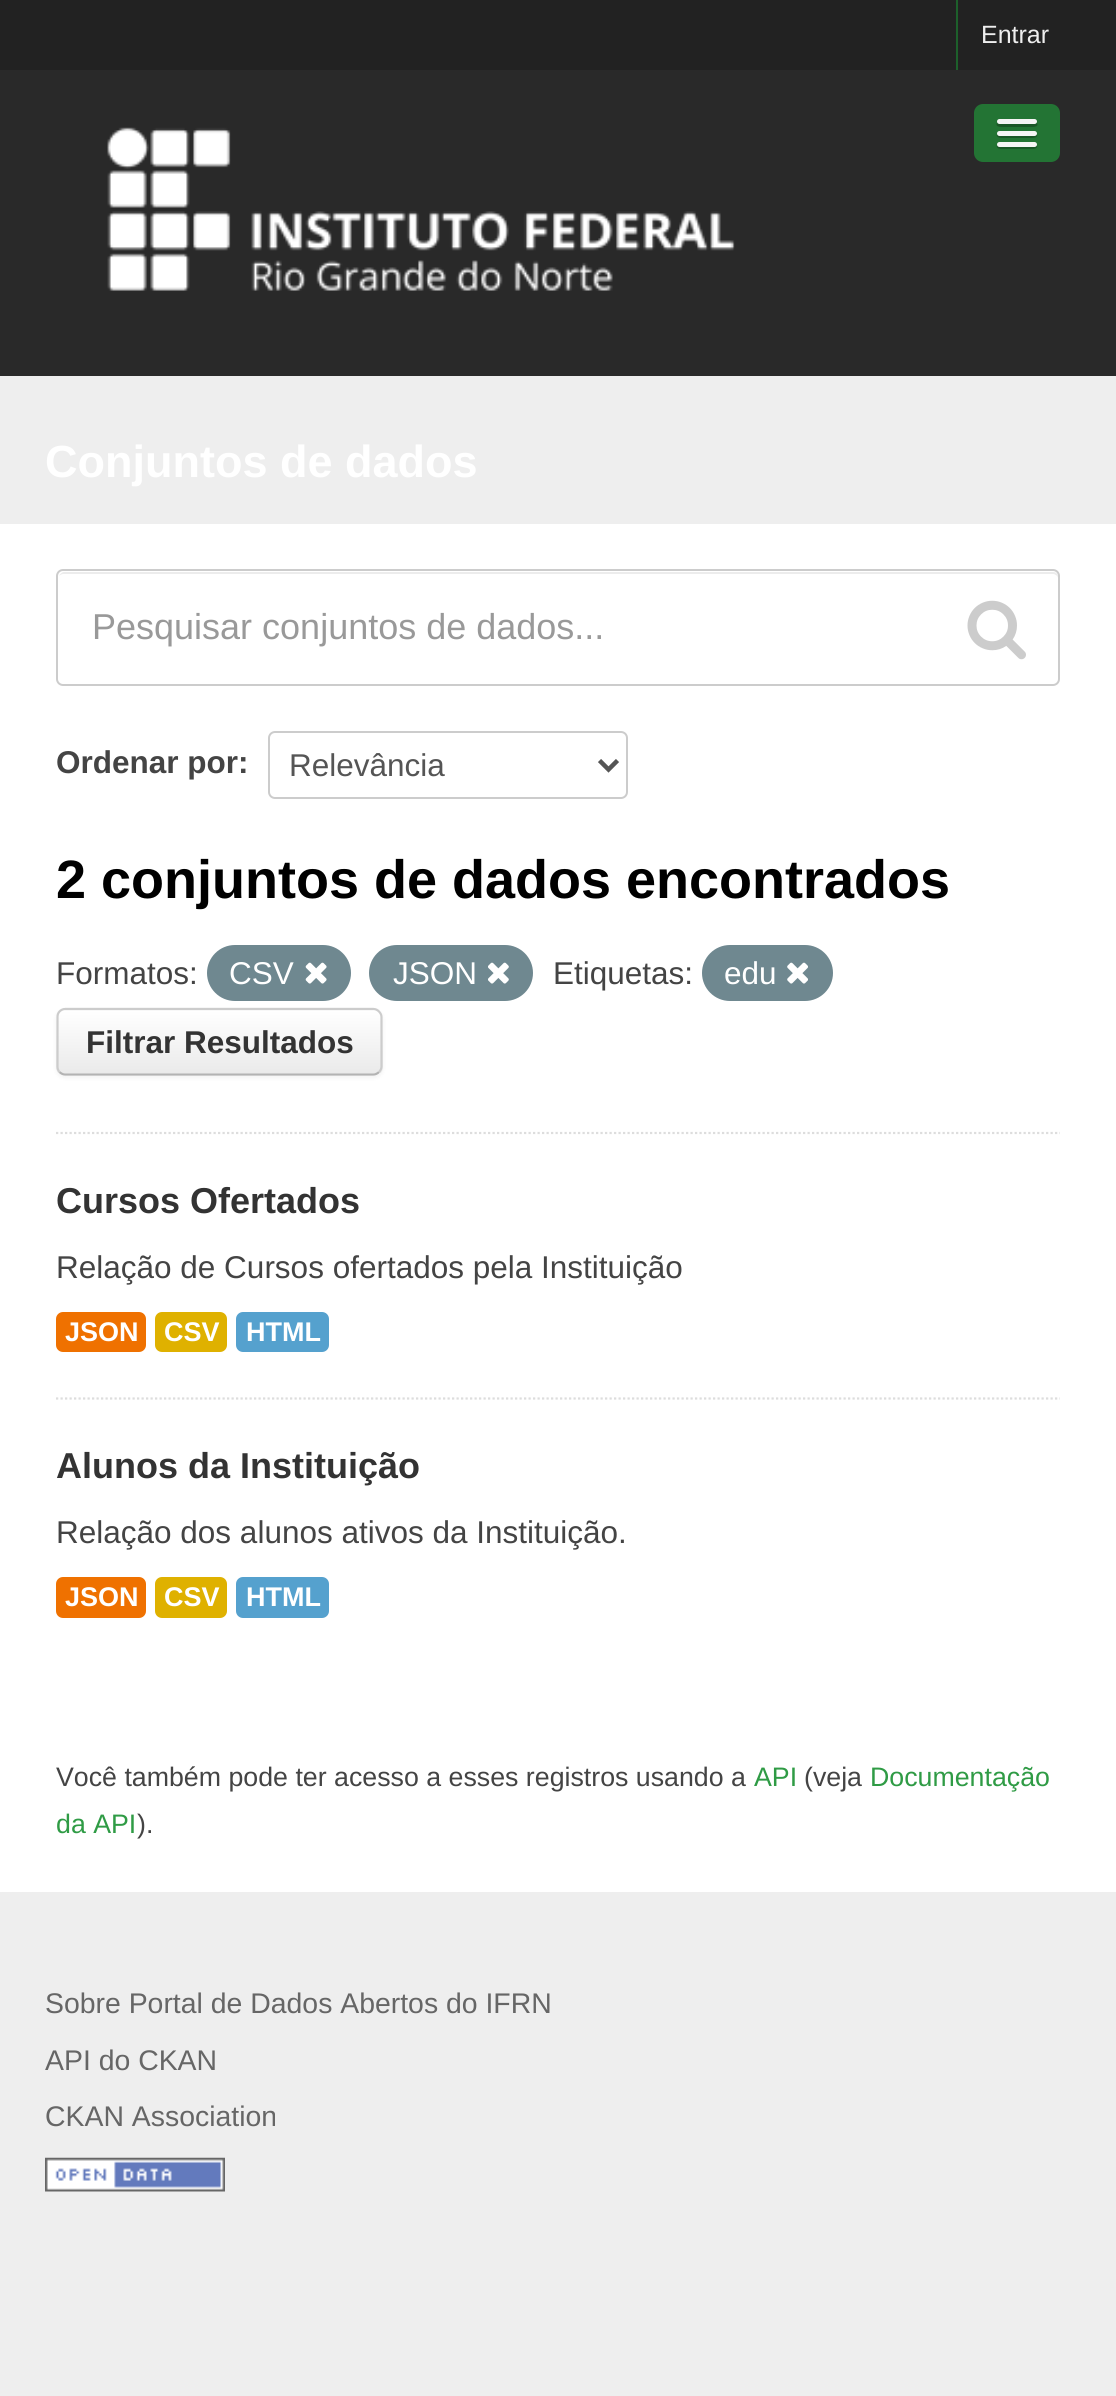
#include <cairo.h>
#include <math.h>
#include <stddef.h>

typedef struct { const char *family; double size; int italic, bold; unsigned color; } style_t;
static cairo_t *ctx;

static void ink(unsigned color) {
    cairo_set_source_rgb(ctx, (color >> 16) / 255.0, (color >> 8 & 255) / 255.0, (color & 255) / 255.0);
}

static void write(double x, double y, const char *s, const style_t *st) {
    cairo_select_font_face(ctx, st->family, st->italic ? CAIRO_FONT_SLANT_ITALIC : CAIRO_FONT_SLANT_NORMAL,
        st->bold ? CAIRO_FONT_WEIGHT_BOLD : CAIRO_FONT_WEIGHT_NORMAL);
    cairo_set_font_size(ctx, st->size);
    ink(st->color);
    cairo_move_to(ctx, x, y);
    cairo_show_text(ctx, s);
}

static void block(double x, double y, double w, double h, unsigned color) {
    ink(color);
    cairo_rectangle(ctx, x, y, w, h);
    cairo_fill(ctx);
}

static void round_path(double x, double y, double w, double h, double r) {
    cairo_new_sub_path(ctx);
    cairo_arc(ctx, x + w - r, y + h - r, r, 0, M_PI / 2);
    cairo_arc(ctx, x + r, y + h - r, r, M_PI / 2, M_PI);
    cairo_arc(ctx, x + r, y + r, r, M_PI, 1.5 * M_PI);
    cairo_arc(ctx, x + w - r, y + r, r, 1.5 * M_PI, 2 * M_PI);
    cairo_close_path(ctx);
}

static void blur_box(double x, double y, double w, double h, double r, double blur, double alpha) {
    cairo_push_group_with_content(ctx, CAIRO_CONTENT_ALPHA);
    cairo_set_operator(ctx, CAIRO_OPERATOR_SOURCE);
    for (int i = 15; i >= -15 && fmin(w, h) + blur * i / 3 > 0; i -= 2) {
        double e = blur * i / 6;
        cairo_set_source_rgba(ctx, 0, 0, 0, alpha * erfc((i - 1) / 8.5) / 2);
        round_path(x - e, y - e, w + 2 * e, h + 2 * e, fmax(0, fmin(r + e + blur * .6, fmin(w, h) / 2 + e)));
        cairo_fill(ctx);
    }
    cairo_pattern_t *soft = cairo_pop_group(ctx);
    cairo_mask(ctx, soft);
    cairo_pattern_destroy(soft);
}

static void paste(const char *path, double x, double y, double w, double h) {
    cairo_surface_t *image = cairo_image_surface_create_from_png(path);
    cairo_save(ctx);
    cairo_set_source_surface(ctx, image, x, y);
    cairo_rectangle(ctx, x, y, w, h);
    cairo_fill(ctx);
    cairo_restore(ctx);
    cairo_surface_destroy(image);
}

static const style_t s1 = {"Liberation Sans", 25, 0, 0, 0xeeeeee};
static const style_t s2 = {"Liberation Sans", 45, 0, 1, 0xffffff};
static const style_t s3 = {"Liberation Sans", 36, 0, 0, 0x999999};
static const style_t s4 = {"Liberation Sans", 31.5, 0, 1, 0x444444};
static const style_t s5 = {"Liberation Sans", 31.5, 0, 0, 0x555555};
static const style_t s6 = {"Liberation Sans", 54, 0, 1, 0x000000};
static const style_t s7 = {"Liberation Sans", 31.5, 0, 0, 0x444444};
static const style_t s8 = {"Liberation Sans", 31.5, 0, 0, 0xffffff};
static const style_t s9 = {"Liberation Sans", 31.5, 0, 1, 0x333333};
static const style_t s10 = {"Liberation Sans", 36, 0, 1, 0x333333};
static const style_t s11 = {"Liberation Sans", 27, 0, 1, 0xffffff};
static const style_t s12 = {"Liberation Sans", 26.75, 0, 0, 0x444444};
static const style_t s13 = {"Liberation Sans", 26.75, 0, 0, 0x2f9b45};
static const style_t s14 = {"Liberation Sans", 28.4, 0, 0, 0x666666};

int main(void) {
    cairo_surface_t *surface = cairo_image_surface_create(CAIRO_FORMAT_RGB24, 1116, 2396);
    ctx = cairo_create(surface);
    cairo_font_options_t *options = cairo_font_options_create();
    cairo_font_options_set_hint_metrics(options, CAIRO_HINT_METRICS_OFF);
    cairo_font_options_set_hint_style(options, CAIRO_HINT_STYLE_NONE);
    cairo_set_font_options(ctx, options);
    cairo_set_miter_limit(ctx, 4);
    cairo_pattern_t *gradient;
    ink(0xeeeeee);
    cairo_paint(ctx);
    block(0, 0, 1116, 70, 0x222222);
    block(956, 0, 2, 70, 0x1d602b);
    write(981, 43, "Entrar", &s1);
    block(0, 70, 1116, 306, 0x292929);
    paste("pic1.png", 107, 127, 628, 164);
    ink(0x237434);
    round_path(974, 104, 86, 58, 9);
    cairo_fill(ctx);
    ink(0x1a5727);
    cairo_new_path(ctx);
    cairo_move_to(ctx, 997, 123);
    cairo_curve_to(ctx, 994, 128, 1005, 127, 1005, 127);
    cairo_line_to(ctx, 1029, 127);
    cairo_curve_to(ctx, 1029, 127, 1040, 128, 1037, 123);
    cairo_curve_to(ctx, 1035, 124, 999, 124, 997, 123);
    cairo_close_path(ctx);
    cairo_fill(ctx);
    ink(0xf5f5f5);
    round_path(997, 119, 40, 5, 2.5);
    cairo_fill(ctx);
    ink(0x1a5727);
    cairo_new_path(ctx);
    cairo_move_to(ctx, 997, 134);
    cairo_curve_to(ctx, 995, 139, 1005, 138, 1005, 138);
    cairo_line_to(ctx, 1029, 138);
    cairo_curve_to(ctx, 1029, 138, 1039, 139, 1037, 134);
    cairo_curve_to(ctx, 1035, 136, 999, 136, 997, 134);
    cairo_close_path(ctx);
    cairo_fill(ctx);
    ink(0xf5f5f5);
    round_path(997, 131, 40, 5, 2.5);
    cairo_fill(ctx);
    ink(0x1a5727);
    cairo_new_path(ctx);
    cairo_move_to(ctx, 997, 145);
    cairo_curve_to(ctx, 995, 150, 1004, 149, 1005, 149);
    cairo_line_to(ctx, 1029, 149);
    cairo_curve_to(ctx, 1030, 149, 1039, 150, 1037, 145);
    cairo_line_to(ctx, 1035, 146);
    cairo_line_to(ctx, 999, 146);
    cairo_close_path(ctx);
    cairo_fill(ctx);
    ink(0xf5f5f5);
    round_path(997, 142, 40, 5, 2.5);
    cairo_fill(ctx);
    write(45, 477, "Conjuntos de dados", &s2);
    block(0, 524, 1116, 1368, 0xffffff);
    cairo_new_path(ctx);
    cairo_move_to(ctx, 56, 1133);
    cairo_line_to(ctx, 1060, 1133);
    ink(0xdddddd);
    cairo_set_line_width(ctx, 2.2);
    cairo_set_dash(ctx, (double[]){2.25, 2.25}, 2, 0);
    cairo_stroke(ctx);
    ink(0xececec);
    cairo_new_path(ctx);
    cairo_move_to(ctx, 63, 574);
    cairo_line_to(ctx, 1053, 574);
    cairo_curve_to(ctx, 1055, 574, 1058, 576, 1058, 578);
    cairo_line_to(ctx, 1058, 577);
    cairo_curve_to(ctx, 1058, 574, 1056, 572, 1053, 572);
    cairo_line_to(ctx, 64, 572);
    cairo_curve_to(ctx, 62, 572, 60, 574, 59, 576);
    cairo_curve_to(ctx, 60, 575, 62, 574, 63, 574);
    cairo_close_path(ctx);
    cairo_fill(ctx);
    round_path(57, 570, 1002, 115, 6);
    ink(0xcccccc);
    cairo_set_line_width(ctx, 2);
    cairo_set_dash(ctx, NULL, 0, 0);
    cairo_stroke(ctx);
    write(92, 639, "Pesquisar conjuntos de dados...", &s3);
    paste("pic2.png", 967, 600, 59, 60);
    write(56, 773, "Ordenar por:", &s4);
    round_path(269, 732, 358, 66, 6);
    ink(0xcccccc);
    cairo_stroke(ctx);
    cairo_new_path(ctx);
    cairo_move_to(ctx, 599.5, 760.5);
    cairo_line_to(ctx, 608.5, 769.5);
    cairo_line_to(ctx, 617.5, 760.5);
    ink(0x555555);
    cairo_set_line_width(ctx, 4.5);
    cairo_stroke(ctx);
    write(289, 776, "Relevância", &s5);
    write(56, 898, "2 conjuntos de dados encontrados", &s6);
    write(56, 984, "Formatos:", &s7);
    ink(0x6f8890);
    round_path(207, 945, 144, 56, 28);
    cairo_fill(ctx);
    write(229, 984, "CSV", &s8);
    paste("pic3.png", 305, 962, 22, 22);
    ink(0x6f8890);
    round_path(369, 945, 164, 56, 28);
    cairo_fill(ctx);
    write(393, 984, "JSON", &s8);
    paste("pic4.png", 488, 962, 21, 22);
    write(553, 984, "Etiquetas:", &s7);
    ink(0x6f8890);
    round_path(702, 945, 131, 56, 28);
    cairo_fill(ctx);
    write(724, 984, "edu", &s8);
    paste("pic5.png", 787, 962, 21, 22);
    ink(0x000000);
    blur_box(56, 1010, 327, 68, 9, 2, 0.05);
    ink(0xf7f7f7);
    round_path(56, 1008, 327, 68, 9);
    cairo_fill(ctx);
    cairo_save(ctx);
    round_path(56, 1008, 327, 68, 9);
    cairo_clip(ctx);
    gradient = cairo_pattern_create_linear(219, 1010, 219, 1073);
    cairo_pattern_add_color_stop_rgba(gradient, 0, 1, 1, 1, 1);
    cairo_pattern_add_color_stop_rgba(gradient, 1, 0.918, 0.918, 0.918, 1);
    cairo_set_source(ctx, gradient);
    cairo_pattern_destroy(gradient);
    cairo_rectangle(ctx, 56, 1010, 327, 63);
    cairo_fill(ctx);
    cairo_restore(ctx);
    cairo_new_path(ctx);
    cairo_move_to(ctx, 379, 1072);
    cairo_curve_to(ctx, 377.5, 1073.5, 375.5, 1074.5, 373.5, 1074.5);
    cairo_line_to(ctx, 65, 1074.5);
    cairo_curve_to(ctx, 63, 1074.5, 61, 1073.5, 59.5, 1072);
    ink(0xb3b3b3);
    cairo_set_line_width(ctx, 2.2);
    cairo_stroke(ctx);
    cairo_new_path(ctx);
    cairo_move_to(ctx, 59.5, 1072);
    cairo_curve_to(ctx, 58, 1070.5, 57.5, 1068.5, 57.5, 1066.5);
    cairo_line_to(ctx, 57.5, 1017);
    cairo_curve_to(ctx, 57.5, 1015, 58, 1013, 59.5, 1011.5);
    cairo_curve_to(ctx, 61, 1010, 63, 1009, 65, 1009);
    cairo_line_to(ctx, 373.5, 1009);
    cairo_curve_to(ctx, 375.5, 1009, 377.5, 1010, 379, 1011.5);
    cairo_curve_to(ctx, 380.5, 1013, 381.5, 1015, 381.5, 1017);
    cairo_line_to(ctx, 381.5, 1066.5);
    cairo_curve_to(ctx, 381.5, 1068.5, 380.5, 1070.5, 379, 1072);
    ink(0xcccccc);
    cairo_stroke(ctx);
    write(86, 1053, "Filtrar Resultados", &s9);
    cairo_new_path(ctx);
    cairo_move_to(ctx, 56, 1398.5);
    cairo_line_to(ctx, 1060, 1398.5);
    ink(0xdddddd);
    cairo_set_dash(ctx, (double[]){2.25, 2.25}, 2, 0);
    cairo_stroke(ctx);
    write(56, 1213, "Cursos Ofertados", &s10);
    write(56, 1278, "Relação de Cursos ofertados pela Instituição", &s7);
    ink(0xef7100);
    round_path(56, 1312, 90, 40, 7);
    cairo_fill(ctx);
    write(65, 1341, "JSON", &s11);
    ink(0xdfb100);
    round_path(155, 1312, 72, 40, 7);
    cairo_fill(ctx);
    write(164, 1341, "CSV", &s11);
    ink(0x55a1ce);
    round_path(236, 1312, 93, 40, 7);
    cairo_fill(ctx);
    write(246, 1341, "HTML", &s11);
    write(56, 1478, "Alunos da Instituição", &s10);
    write(56, 1543, "Relação dos alunos ativos da Instituição.", &s7);
    ink(0xef7100);
    round_path(56, 1577, 90, 41, 7);
    cairo_fill(ctx);
    write(65, 1606, "JSON", &s11);
    ink(0xdfb100);
    round_path(155, 1577, 72, 41, 7);
    cairo_fill(ctx);
    write(164, 1606, "CSV", &s11);
    ink(0x55a1ce);
    round_path(236, 1577, 93, 41, 7);
    cairo_fill(ctx);
    write(246, 1606, "HTML", &s11);
    write(56, 1786, "Você também pode ter acesso a esses registros usando a", &s12);
    write(754, 1786, "API", &s13);
    write(804, 1786, "(veja", &s12);
    write(870, 1786, "Documentação", &s13);
    write(56, 1833, "da API", &s13);
    write(137, 1833, ").", &s12);
    write(45, 2013, "Sobre Portal de Dados Abertos do IFRN", &s14);
    write(45, 2070, "API do CKAN", &s14);
    write(45, 2126, "CKAN Association", &s14);
    paste("pic6.png", 45, 2157, 180, 35);
    cairo_surface_write_to_png(surface, "screenshot.png");
    cairo_font_options_destroy(options);
    cairo_destroy(ctx);
    cairo_surface_destroy(surface);
    return 0;
}
